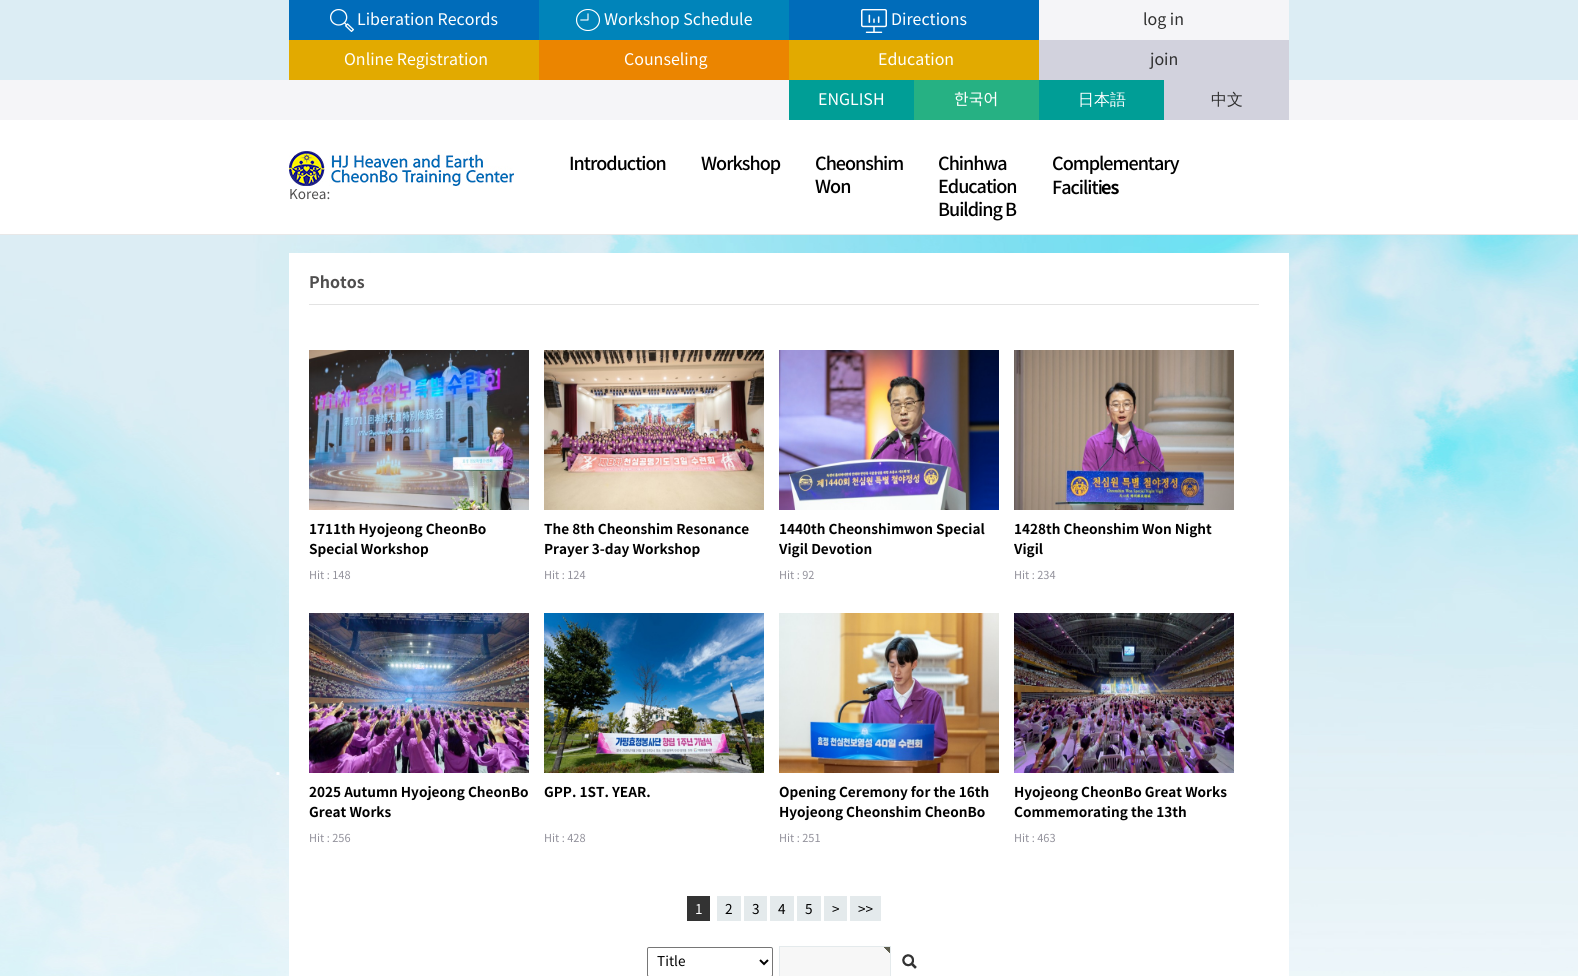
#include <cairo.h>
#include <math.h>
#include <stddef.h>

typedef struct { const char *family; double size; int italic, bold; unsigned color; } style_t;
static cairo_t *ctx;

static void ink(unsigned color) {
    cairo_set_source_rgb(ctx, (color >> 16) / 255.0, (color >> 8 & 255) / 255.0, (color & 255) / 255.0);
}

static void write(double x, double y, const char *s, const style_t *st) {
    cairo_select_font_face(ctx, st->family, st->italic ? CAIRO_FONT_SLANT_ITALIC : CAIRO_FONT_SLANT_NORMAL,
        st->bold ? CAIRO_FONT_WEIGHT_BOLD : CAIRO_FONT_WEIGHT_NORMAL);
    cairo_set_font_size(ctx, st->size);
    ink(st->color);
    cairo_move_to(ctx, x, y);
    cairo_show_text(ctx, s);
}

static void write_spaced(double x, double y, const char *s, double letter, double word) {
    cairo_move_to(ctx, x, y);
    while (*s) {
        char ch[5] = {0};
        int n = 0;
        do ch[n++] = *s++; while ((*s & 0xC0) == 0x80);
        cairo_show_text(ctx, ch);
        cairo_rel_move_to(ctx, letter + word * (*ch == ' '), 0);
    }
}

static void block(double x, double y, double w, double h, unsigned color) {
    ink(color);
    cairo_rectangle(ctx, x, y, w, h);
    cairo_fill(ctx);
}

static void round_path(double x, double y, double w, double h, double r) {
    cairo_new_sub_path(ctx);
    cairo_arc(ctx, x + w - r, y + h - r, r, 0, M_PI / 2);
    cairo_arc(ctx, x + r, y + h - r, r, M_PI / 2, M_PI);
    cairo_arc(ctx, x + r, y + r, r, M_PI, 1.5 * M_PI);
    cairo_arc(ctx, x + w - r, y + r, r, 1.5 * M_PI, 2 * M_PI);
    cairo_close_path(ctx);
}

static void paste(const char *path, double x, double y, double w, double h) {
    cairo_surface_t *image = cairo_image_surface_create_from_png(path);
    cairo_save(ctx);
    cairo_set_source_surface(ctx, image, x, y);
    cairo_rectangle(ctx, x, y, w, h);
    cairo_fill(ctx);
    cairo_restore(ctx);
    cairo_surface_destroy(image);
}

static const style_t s1 = {"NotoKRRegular", 16, 0, 0, 0xffffff};
static const style_t s2 = {"NotoKRRegular", 16, 0, 0, 0x303030};
static const style_t s3 = {"WenQuanYi Zen Hei Medium", 16, 0, 0, 0xffffff};
static const style_t s4 = {"WenQuanYi Zen Hei Medium", 16, 0, 0, 0x303030};
static const style_t s5 = {"NotoKRRegular", 13.6, 0, 0, 0x4f4e4e};
static const style_t s6 = {"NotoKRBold", 16, 0, 1, 0x4f4e4e};
static const style_t s7 = {"NotoKRBold", 13.6, 0, 1, 0x000000};
static const style_t s8 = {"NotoKRRegular", 11, 0, 0, 0x92919b};
static const style_t s9 = {"NotoKRRegular", 13.6, 0, 0, 0xffffff};
static const style_t s10 = {"NotoKRRegular", 13.6, 0, 0, 0x000000};

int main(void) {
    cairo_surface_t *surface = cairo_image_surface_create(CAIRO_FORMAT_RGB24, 1578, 976);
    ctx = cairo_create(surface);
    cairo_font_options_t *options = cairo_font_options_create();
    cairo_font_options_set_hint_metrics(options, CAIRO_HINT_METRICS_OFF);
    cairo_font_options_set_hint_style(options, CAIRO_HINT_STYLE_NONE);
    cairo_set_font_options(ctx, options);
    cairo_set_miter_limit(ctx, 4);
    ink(0xffffff);
    cairo_paint(ctx);
    block(0, 0, 1578, 80, 0xdcedf4);
    block(289, 0, 250, 40, 0x006cba);
    paste("pic1.png", 330, 9, 24, 23);
    write(357, 25, "Liberation Records", &s1);
    block(539, 0, 250, 40, 0x0084ba);
    paste("pic2.png", 576, 9, 24, 22);
    write(604, 25, "Workshop Schedule", &s1);
    block(789, 0, 250, 40, 0x006cba);
    paste("pic3.png", 861, 9, 26, 24);
    write(891, 25, "Directions", &s1);
    block(1039, 0, 250, 40, 0xf5f5f8);
    write(1143, 25, "log in", &s2);
    block(289, 40, 250, 40, 0xe2aa00);
    write(344, 65, "Online Registration", &s1);
    block(539, 40, 250, 40, 0xeb8500);
    write(624, 65, "Counseling", &s1);
    block(789, 40, 250, 40, 0xe2aa00);
    write(878, 65, "Education", &s1);
    block(1039, 40, 250, 40, 0xd2d2dd);
    write(1150, 65, "join", &s2);
    block(0, 80, 1578, 40, 0xf5f5f8);
    block(789, 80, 125, 40, 0x009e96);
    write(818, 105, "ENGLISH", &s1);
    block(914, 80, 125, 40, 0x26b183);
    write(954, 105, "한국어", &s1);
    block(1039, 80, 125, 40, 0x009e96);
    write(1078, 105, "日本語", &s3);
    block(1164, 80, 125, 40, 0xd2d2dd);
    write(1211, 105, "中文", &s4);
    block(0, 234, 1578, 1, 0xe8e8e8);
    paste("pic4.png", 289, 151, 225, 35);
    write(289, 199, "Korea:", &s5);
    cairo_select_font_face(ctx, "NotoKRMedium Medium", CAIRO_FONT_SLANT_NORMAL, CAIRO_FONT_WEIGHT_NORMAL);
    cairo_set_font_size(ctx, 18);
    ink(0x000000);
    write_spaced(569, 170, "Introduction", -1, 0);
    write_spaced(701, 170, "Workshop", -1, 0);
    write_spaced(815, 170, "Cheonshim", -1, 0);
    write_spaced(815, 193, "Won", -1, 0);
    write_spaced(938, 170, "Chinhwa", -1, 0);
    write_spaced(938, 193, "Education", -1, 0);
    write_spaced(938, 216, "Building B", -1, 0);
    write_spaced(1052, 170, "Complementary", -1, 0);
    write_spaced(1052, 194, "Faciliti", -1, 0);
    cairo_select_font_face(ctx, "NotoKRBold", CAIRO_FONT_SLANT_NORMAL, CAIRO_FONT_WEIGHT_BOLD);
    write_spaced(1101, 194, "es", -1, 0);
    paste("pic5.png", 0, 235, 1578, 741);
    block(289, 253, 1000, 723, 0xffffff);
    block(309, 304, 950, 1, 0xe3e3e3);
    write(309, 288, "Photos", &s6);
    paste("pic6.png", 309, 350, 220, 160);
    write(309, 534, "1711th Hyojeong CheonBo", &s7);
    write(309, 554, "Special Workshop", &s7);
    write(309, 579, "Hit : 148", &s8);
    paste("pic7.png", 544, 350, 220, 160);
    write(544, 534, "The 8th Cheonshim Resonance", &s7);
    write(544, 554, "Prayer 3-day Workshop", &s7);
    write(544, 579, "Hit : 124", &s8);
    paste("pic8.png", 779, 350, 220, 160);
    write(779, 534, "1440th Cheonshimwon Special", &s7);
    write(779, 554, "Vigil Devotion", &s7);
    write(779, 579, "Hit : 92", &s8);
    paste("pic9.png", 1014, 350, 220, 160);
    write(1014, 534, "1428th Cheonshim Won Night", &s7);
    write(1014, 554, "Vigil", &s7);
    write(1014, 579, "Hit : 234", &s8);
    paste("pic10.png", 309, 613, 220, 160);
    write(309, 797, "2025 Autumn Hyojeong CheonBo", &s7);
    write(309, 817, "Great Works", &s7);
    write(309, 842, "Hit : 256", &s8);
    paste("pic11.png", 544, 613, 220, 160);
    write(544, 797, "GPP. 1ST. YEAR.", &s7);
    write(544, 842, "Hit : 428", &s8);
    paste("pic12.png", 779, 613, 220, 160);
    write(779, 797, "Opening Ceremony for the 16th", &s7);
    write(779, 817, "Hyojeong Cheonshim CheonBo", &s7);
    write(779, 842, "Hit : 251", &s8);
    paste("pic13.png", 1014, 613, 220, 160);
    write(1014, 797, "Hyojeong CheonBo Great Works", &s7);
    write(1014, 817, "Commemorating the 13th", &s7);
    write(1014, 842, "Hit : 463", &s8);
    block(687, 896, 23, 25, 0x333333);
    write(695, 914, "1", &s9);
    block(717, 896, 24, 25, 0xe4eaec);
    write(725, 914, "2", &s10);
    block(744, 896, 23, 25, 0xe4eaec);
    write(752, 914, "3", &s10);
    block(770, 896, 24, 25, 0xe4eaec);
    write(778, 914, "4", &s10);
    block(797, 896, 24, 25, 0xe4eaec);
    write(805, 914, "5", &s10);
    block(824, 896, 23, 25, 0xe4eaec);
    write(832, 914, ">", &s10);
    block(850, 896, 31, 25, 0xe4eaec);
    write(858, 914, ">>", &s10);
    round_path(647.5, 947.5, 125, 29, 1.5);
    ink(0x767676);
    cairo_set_line_width(ctx, 1);
    cairo_stroke(ctx);
    cairo_new_path(ctx);
    cairo_move_to(ctx, 760, 960);
    cairo_line_to(ctx, 764, 964);
    cairo_line_to(ctx, 768, 960);
    ink(0x000000);
    cairo_set_line_width(ctx, 2);
    cairo_stroke(ctx);
    write(657, 966, "Title", &s10);
    block(780, 947, 110, 29, 0xf7f7f7);
    paste("pic14.png", 884, 947, 6, 6);
    cairo_rectangle(ctx, 779.5, 946.5, 111, 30);
    ink(0xe4eaec);
    cairo_set_line_width(ctx, 1);
    cairo_stroke(ctx);
    paste("pic15.png", 902, 954, 15, 15);
    cairo_surface_write_to_png(surface, "screenshot.png");
    cairo_font_options_destroy(options);
    cairo_destroy(ctx);
    cairo_surface_destroy(surface);
    return 0;
}
